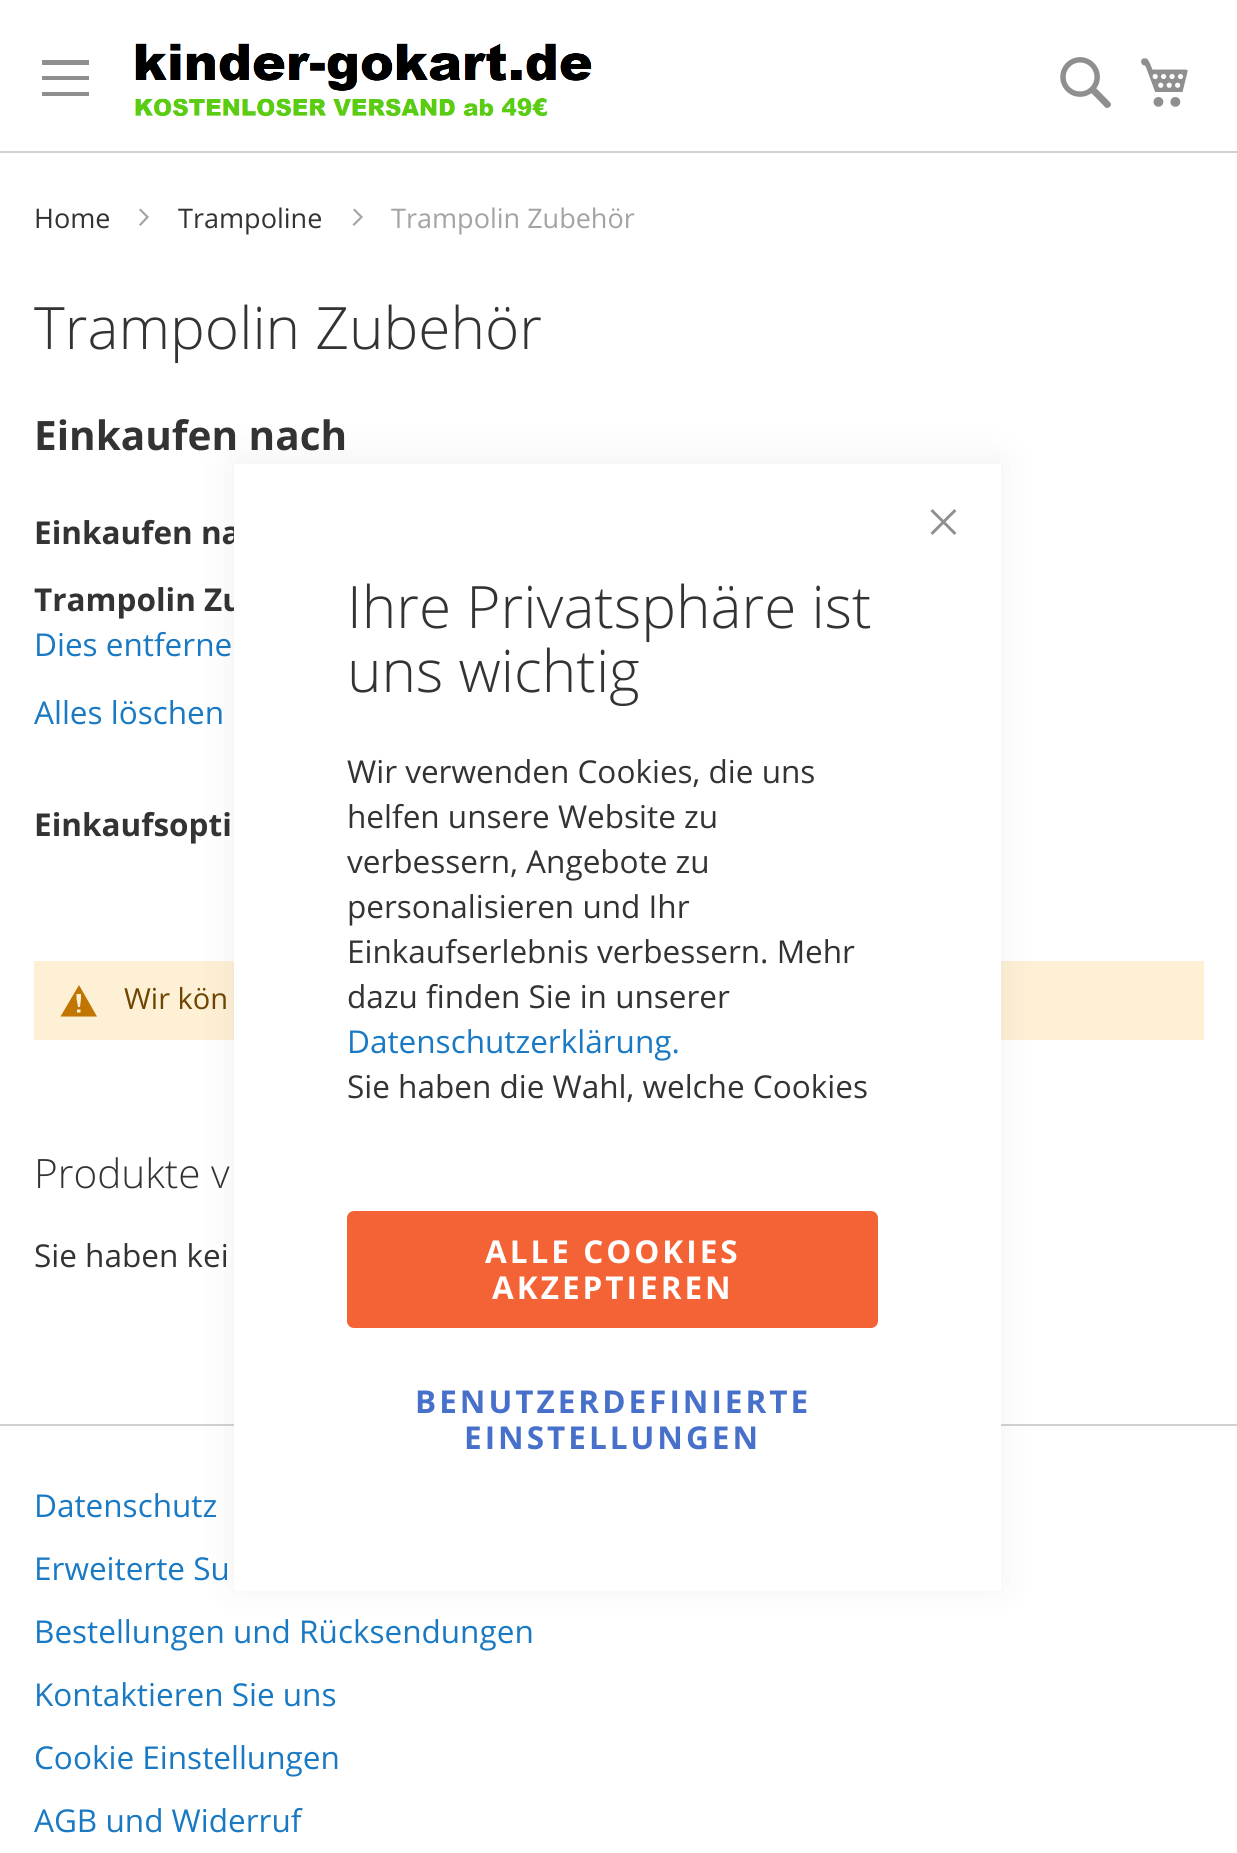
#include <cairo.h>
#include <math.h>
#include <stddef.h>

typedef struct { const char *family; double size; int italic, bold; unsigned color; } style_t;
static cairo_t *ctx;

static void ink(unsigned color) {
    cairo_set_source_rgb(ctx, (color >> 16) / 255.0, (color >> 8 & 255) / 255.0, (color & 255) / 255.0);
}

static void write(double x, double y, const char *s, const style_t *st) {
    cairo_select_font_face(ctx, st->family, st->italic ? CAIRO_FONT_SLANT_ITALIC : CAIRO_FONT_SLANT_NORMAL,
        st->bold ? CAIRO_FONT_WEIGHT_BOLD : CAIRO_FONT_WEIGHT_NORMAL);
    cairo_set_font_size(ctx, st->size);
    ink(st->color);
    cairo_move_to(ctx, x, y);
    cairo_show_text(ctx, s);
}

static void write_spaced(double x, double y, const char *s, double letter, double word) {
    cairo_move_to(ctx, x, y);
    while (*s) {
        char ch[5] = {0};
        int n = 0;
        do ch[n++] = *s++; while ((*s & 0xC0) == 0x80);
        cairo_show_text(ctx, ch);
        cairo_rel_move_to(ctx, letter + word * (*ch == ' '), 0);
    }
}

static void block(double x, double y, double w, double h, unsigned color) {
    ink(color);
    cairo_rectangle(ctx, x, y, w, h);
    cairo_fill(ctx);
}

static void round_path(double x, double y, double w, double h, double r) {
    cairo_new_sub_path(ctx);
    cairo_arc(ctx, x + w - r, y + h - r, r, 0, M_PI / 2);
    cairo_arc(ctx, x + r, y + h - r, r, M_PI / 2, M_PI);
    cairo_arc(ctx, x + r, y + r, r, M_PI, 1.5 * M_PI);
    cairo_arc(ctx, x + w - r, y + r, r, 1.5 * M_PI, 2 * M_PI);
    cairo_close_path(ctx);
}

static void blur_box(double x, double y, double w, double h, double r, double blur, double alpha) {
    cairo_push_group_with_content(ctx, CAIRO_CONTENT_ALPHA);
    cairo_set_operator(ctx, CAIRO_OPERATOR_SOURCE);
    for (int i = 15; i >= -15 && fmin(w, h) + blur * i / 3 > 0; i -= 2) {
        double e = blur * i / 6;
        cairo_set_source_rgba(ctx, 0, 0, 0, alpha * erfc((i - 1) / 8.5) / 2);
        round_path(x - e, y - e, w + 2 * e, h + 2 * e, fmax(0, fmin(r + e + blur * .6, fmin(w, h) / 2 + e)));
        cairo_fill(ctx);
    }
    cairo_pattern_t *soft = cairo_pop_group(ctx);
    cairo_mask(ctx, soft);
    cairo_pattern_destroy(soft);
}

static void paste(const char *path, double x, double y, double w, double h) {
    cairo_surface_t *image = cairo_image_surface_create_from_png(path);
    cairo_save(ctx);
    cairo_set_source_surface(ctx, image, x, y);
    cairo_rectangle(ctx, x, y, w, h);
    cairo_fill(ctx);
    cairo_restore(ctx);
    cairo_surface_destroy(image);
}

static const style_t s1 = {"Open Sans", 27, 0, 0, 0x333333};
static const style_t s2 = {"Open Sans", 27, 0, 0, 0xa3a3a3};
static const style_t s3 = {"Open Sans Light", 58.5, 0, 0, 0x333333};
static const style_t s4 = {"Open Sans", 40.5, 0, 1, 0x333333};
static const style_t s5 = {"Open Sans", 31.5, 0, 1, 0x333333};
static const style_t s6 = {"Open Sans", 31.5, 0, 0, 0x1979c3};
static const style_t s7 = {"Open Sans", 29, 0, 0, 0x6f4400};
static const style_t s8 = {"Open Sans Light", 40.5, 0, 0, 0x333333};
static const style_t s9 = {"Open Sans", 31.5, 0, 0, 0x333333};

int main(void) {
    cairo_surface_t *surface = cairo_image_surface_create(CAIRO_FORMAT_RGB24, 1237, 1853);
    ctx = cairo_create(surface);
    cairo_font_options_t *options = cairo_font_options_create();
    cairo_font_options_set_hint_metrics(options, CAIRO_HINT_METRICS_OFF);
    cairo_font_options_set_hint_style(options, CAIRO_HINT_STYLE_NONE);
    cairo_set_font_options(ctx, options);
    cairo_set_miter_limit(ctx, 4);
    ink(0xffffff);
    cairo_paint(ctx);
    block(0, 151, 1237, 2, 0xd1d1d1);
    ink(0x8f8f8f);
    cairo_new_path(ctx);
    cairo_move_to(ctx, 42, 60);
    cairo_line_to(ctx, 42, 65);
    cairo_line_to(ctx, 89, 65);
    cairo_line_to(ctx, 89, 60);
    cairo_close_path(ctx);
    cairo_move_to(ctx, 42, 80);
    cairo_line_to(ctx, 89, 80);
    cairo_line_to(ctx, 89, 76);
    cairo_line_to(ctx, 42, 76);
    cairo_close_path(ctx);
    cairo_move_to(ctx, 42, 96);
    cairo_line_to(ctx, 89, 96);
    cairo_line_to(ctx, 89, 92);
    cairo_line_to(ctx, 42, 92);
    cairo_close_path(ctx);
    cairo_fill(ctx);
    paste("pic1.png", 135, 43, 457, 73);
    paste("pic2.png", 1060, 57, 51, 51);
    paste("pic3.png", 1141, 58, 47, 49);
    write(34, 228, "Home", &s1);
    ink(0xa3a3a3);
    cairo_new_path(ctx);
    cairo_move_to(ctx, 149, 217);
    cairo_line_to(ctx, 140.5, 208.5);
    cairo_line_to(ctx, 139, 210);
    cairo_line_to(ctx, 146, 217);
    cairo_line_to(ctx, 139, 224.5);
    cairo_line_to(ctx, 140.5, 226);
    cairo_close_path(ctx);
    cairo_fill(ctx);
    write(178, 228, "Trampoline", &s1);
    ink(0xa3a3a3);
    cairo_new_path(ctx);
    cairo_move_to(ctx, 363, 217);
    cairo_line_to(ctx, 354.5, 208.5);
    cairo_line_to(ctx, 353, 210);
    cairo_line_to(ctx, 360, 217);
    cairo_line_to(ctx, 352.5, 224.5);
    cairo_line_to(ctx, 354, 226);
    cairo_close_path(ctx);
    cairo_fill(ctx);
    write(391, 228, "Trampolin Zubehör", &s2);
    write(34, 349, "Trampolin Zubehör", &s3);
    write(34, 450, "Einkaufen nach", &s4);
    write(34, 544, "Einkaufen na", &s5);
    write(34, 611, "Trampolin Zu", &s5);
    write(34, 656, "Dies entferne", &s6);
    write(34, 724, "Alles löschen", &s6);
    write(34, 836, "Einkaufsopti", &s5);
    block(34, 961, 1170, 79, 0xfdf0d5);
    ink(0xc07600);
    cairo_new_path(ctx);
    cairo_move_to(ctx, 79, 985);
    cairo_line_to(ctx, 60.5, 1016.5);
    cairo_line_to(ctx, 97, 1016.5);
    cairo_close_path(ctx);
    cairo_move_to(ctx, 80.5, 1012.5);
    cairo_line_to(ctx, 77, 1012.5);
    cairo_line_to(ctx, 77, 1009.5);
    cairo_line_to(ctx, 80.5, 1009.5);
    cairo_close_path(ctx);
    cairo_move_to(ctx, 80, 1007);
    cairo_line_to(ctx, 78, 1007);
    cairo_line_to(ctx, 76.5, 998.5);
    cairo_line_to(ctx, 76.5, 994);
    cairo_line_to(ctx, 81, 994);
    cairo_line_to(ctx, 81, 998.5);
    cairo_close_path(ctx);
    cairo_fill(ctx);
    write(124, 1009, "Wir kön", &s7);
    write(34, 1188, "Produkte v", &s8);
    write(34, 1267, "Sie haben kei", &s9);
    block(0, 1424, 1237, 2, 0xd1d1d1);
    write(34, 1517, "Datenschutz", &s6);
    write(34, 1580, "Erweiterte Su", &s6);
    write(34, 1643, "Bestellungen und Rücksendungen", &s6);
    write(34, 1706, "Kontaktieren Sie uns", &s6);
    write(34, 1769, "Cookie Einstellungen", &s6);
    write(34, 1832, "AGB und Widerruf", &s6);
    ink(0x000000);
    blur_box(234, 459, 767, 1127, 0, 20, 0.06);
    block(234, 464, 767, 1127, 0xffffff);
    paste("pic4.png", 930, 509, 27, 26);
    write(347, 628, "Ihre Privatsphäre ist", &s3);
    write(347, 692, "uns wichtig", &s3);
    write(347, 783, "Wir verwenden Cookies, die uns", &s9);
    write(347, 828, "helfen unsere Website zu", &s9);
    write(347, 873, "verbessern, Angebote zu", &s9);
    write(347, 918, "personalisieren und Ihr", &s9);
    write(347, 963, "Einkaufserlebnis verbessern. Mehr", &s9);
    write(347, 1008, "dazu finden Sie in unserer", &s9);
    write(347, 1053, "Datenschutzerklärung.", &s6);
    write(347, 1098, "Sie haben die Wahl, welche Cookies", &s9);
    ink(0xf46336);
    round_path(347, 1211, 531, 117, 7);
    cairo_fill(ctx);
    cairo_select_font_face(ctx, "Open Sans", CAIRO_FONT_SLANT_NORMAL, CAIRO_FONT_WEIGHT_BOLD);
    ink(0xffffff);
    write_spaced(485, 1263, "ALLE COOKIES", 3, 0);
    write_spaced(492, 1299, "AKZEPTIEREN", 3, 0);
    ink(0x4670c9);
    write_spaced(415, 1413, "BENUTZERDEFINIERTE", 3, 0);
    write_spaced(464, 1449, "EINSTELLUNGEN", 3, 0);
    cairo_surface_write_to_png(surface, "screenshot.png");
    cairo_font_options_destroy(options);
    cairo_destroy(ctx);
    cairo_surface_destroy(surface);
    return 0;
}
